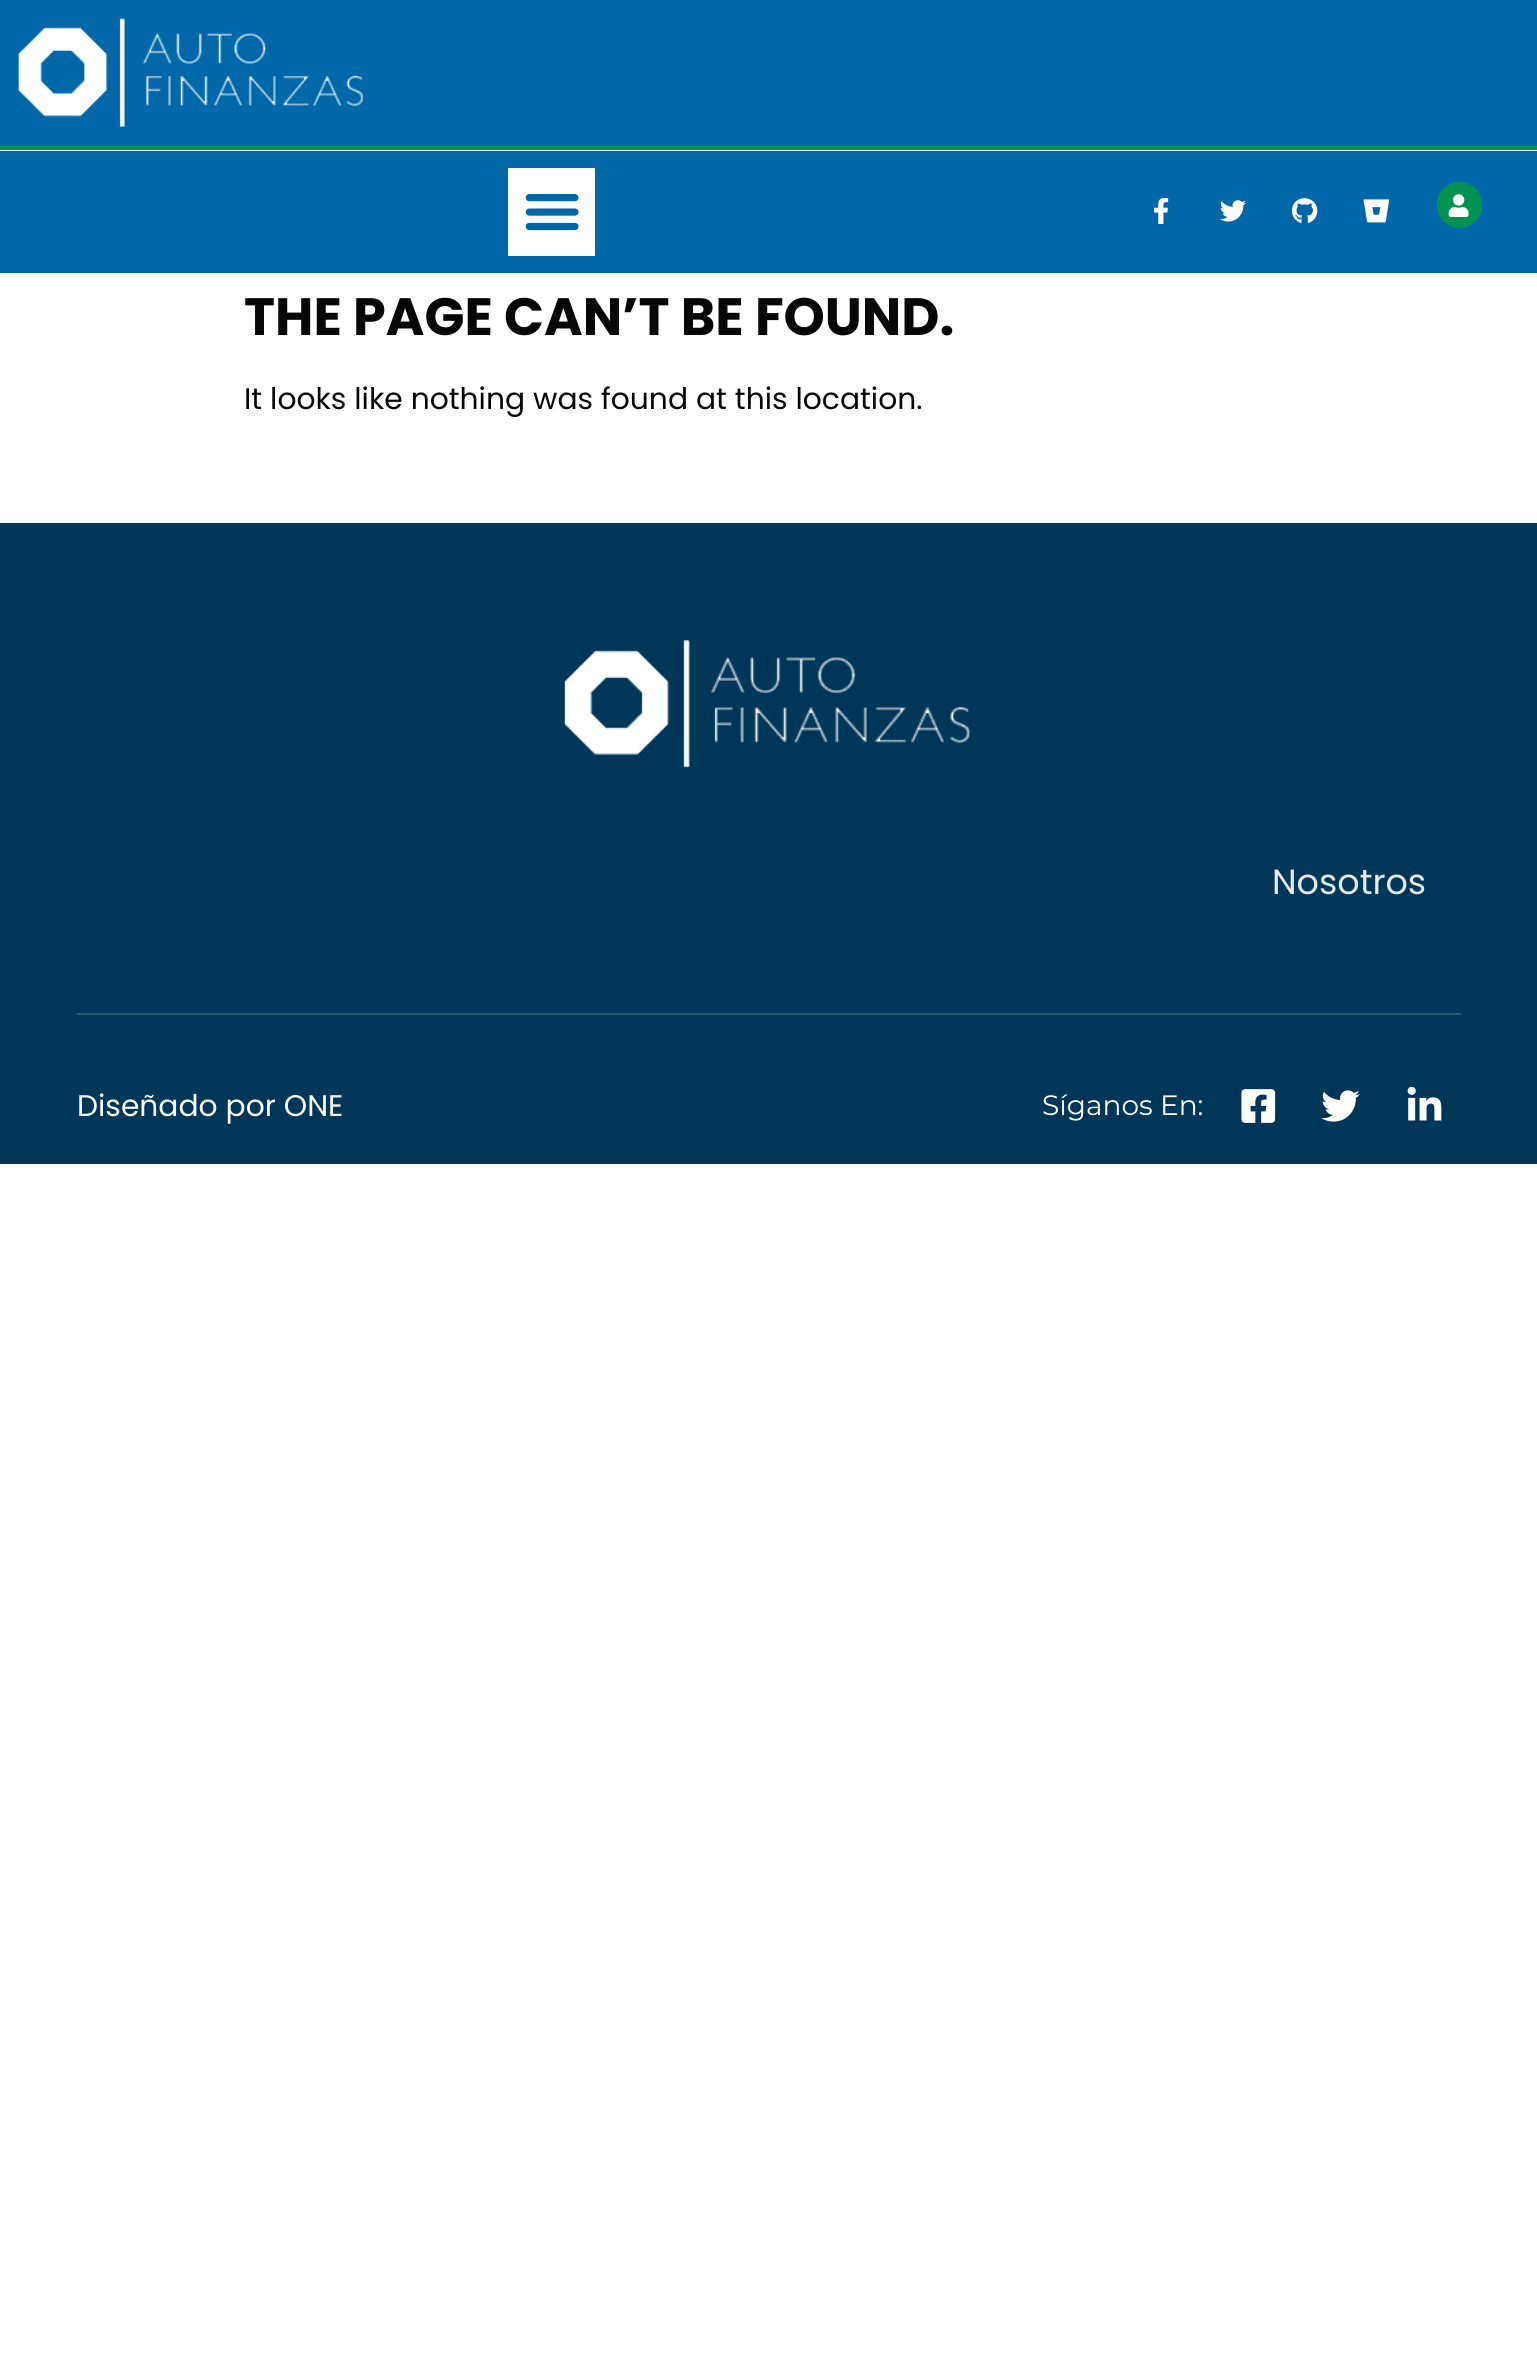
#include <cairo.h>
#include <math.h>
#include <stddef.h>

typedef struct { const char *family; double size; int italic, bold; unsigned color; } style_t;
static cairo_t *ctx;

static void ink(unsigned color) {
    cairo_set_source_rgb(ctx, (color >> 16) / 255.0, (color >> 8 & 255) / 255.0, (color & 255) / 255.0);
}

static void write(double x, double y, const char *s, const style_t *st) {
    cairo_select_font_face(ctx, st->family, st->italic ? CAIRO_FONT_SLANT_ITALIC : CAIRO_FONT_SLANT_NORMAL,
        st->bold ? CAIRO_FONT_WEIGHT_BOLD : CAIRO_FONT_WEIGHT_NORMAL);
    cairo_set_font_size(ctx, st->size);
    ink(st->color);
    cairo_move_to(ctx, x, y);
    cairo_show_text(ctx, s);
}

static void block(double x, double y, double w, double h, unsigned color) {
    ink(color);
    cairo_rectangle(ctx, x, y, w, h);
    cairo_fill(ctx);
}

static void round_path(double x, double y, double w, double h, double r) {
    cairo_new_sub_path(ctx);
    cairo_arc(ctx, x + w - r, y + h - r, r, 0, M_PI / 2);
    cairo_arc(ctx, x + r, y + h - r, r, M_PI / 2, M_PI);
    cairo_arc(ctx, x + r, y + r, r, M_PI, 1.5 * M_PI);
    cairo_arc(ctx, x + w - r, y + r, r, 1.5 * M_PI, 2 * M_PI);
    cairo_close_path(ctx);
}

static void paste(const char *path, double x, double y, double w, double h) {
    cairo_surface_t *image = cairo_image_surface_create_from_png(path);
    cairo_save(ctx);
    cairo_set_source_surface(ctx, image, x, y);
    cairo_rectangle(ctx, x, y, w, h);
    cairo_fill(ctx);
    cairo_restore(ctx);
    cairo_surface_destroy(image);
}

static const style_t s1 = {"Poppins", 52.5, 0, 1, 0x070707};
static const style_t s2 = {"Poppins", 29.75, 0, 0, 0x070707};
static const style_t s3 = {"Poppins", 35, 0, 0, 0xe9e9e9};
static const style_t s4 = {"Poppins", 29.75, 0, 0, 0xffffff};
static const style_t s5 = {"Montserrat", 28, 0, 0, 0xffffff};

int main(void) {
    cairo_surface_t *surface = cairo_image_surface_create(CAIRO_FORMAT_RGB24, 1537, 2362);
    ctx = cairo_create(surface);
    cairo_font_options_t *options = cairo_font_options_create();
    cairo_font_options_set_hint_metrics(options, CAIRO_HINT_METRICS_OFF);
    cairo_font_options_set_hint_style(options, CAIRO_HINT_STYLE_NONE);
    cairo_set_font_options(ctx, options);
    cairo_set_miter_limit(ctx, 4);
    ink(0xffffff);
    cairo_paint(ctx);
    block(0, 0, 1537, 145, 0x0067a8);
    paste("pic1.png", 18, 18, 345, 109);
    block(0, 151, 1537, 122, 0x0067a8);
    block(0, 145, 1537, 5, 0x00934f);
    block(508, 168, 87, 88, 0xffffff);
    paste("pic2.png", 525, 194, 54, 37);
    paste("pic3.png", 1154, 198, 15, 26);
    paste("pic4.png", 1220, 200, 26, 22);
    paste("pic5.png", 1292, 198, 26, 25);
    paste("pic6.png", 1363, 199, 27, 24);
    ink(0x00934f);
    round_path(1437, 182, 45, 46, 22.5);
    cairo_fill(ctx);
    paste("pic7.png", 1448, 194, 21, 23);
    write(244, 335, "THE PAGE CAN’T BE FOUND.", &s1);
    write(244, 409, "It looks like nothing was found at this location.", &s2);
    block(0, 523, 1537, 641, 0x003657);
    paste("pic8.png", 564, 640, 406, 128);
    write(1272, 894, "Nosotros", &s3);
    block(77, 1013, 1384, 2, 0x2e5974);
    write(77, 1116, "Diseñado por ONE", &s4);
    write(1042, 1115, "Síganos En:", &s5);
    paste("pic9.png", 1241, 1089, 35, 34);
    paste("pic10.png", 1321, 1090, 39, 32);
    paste("pic11.png", 1407, 1087, 35, 34);
    cairo_surface_write_to_png(surface, "screenshot.png");
    cairo_font_options_destroy(options);
    cairo_destroy(ctx);
    cairo_surface_destroy(surface);
    return 0;
}
